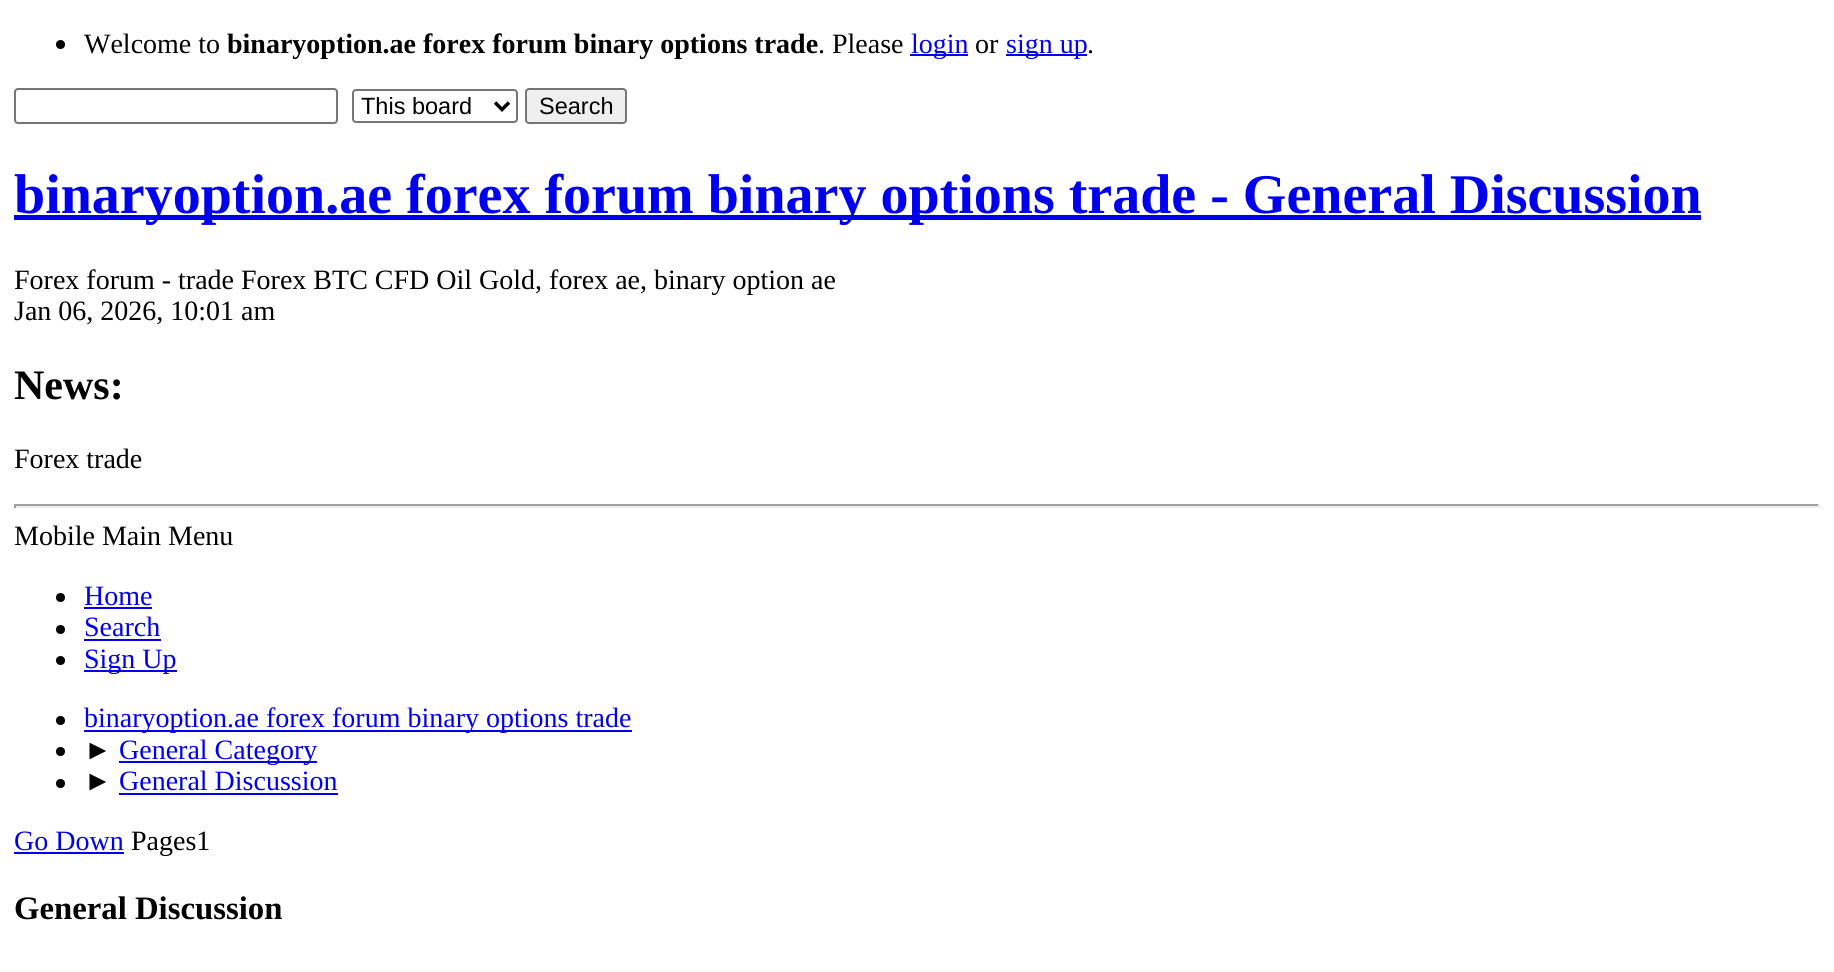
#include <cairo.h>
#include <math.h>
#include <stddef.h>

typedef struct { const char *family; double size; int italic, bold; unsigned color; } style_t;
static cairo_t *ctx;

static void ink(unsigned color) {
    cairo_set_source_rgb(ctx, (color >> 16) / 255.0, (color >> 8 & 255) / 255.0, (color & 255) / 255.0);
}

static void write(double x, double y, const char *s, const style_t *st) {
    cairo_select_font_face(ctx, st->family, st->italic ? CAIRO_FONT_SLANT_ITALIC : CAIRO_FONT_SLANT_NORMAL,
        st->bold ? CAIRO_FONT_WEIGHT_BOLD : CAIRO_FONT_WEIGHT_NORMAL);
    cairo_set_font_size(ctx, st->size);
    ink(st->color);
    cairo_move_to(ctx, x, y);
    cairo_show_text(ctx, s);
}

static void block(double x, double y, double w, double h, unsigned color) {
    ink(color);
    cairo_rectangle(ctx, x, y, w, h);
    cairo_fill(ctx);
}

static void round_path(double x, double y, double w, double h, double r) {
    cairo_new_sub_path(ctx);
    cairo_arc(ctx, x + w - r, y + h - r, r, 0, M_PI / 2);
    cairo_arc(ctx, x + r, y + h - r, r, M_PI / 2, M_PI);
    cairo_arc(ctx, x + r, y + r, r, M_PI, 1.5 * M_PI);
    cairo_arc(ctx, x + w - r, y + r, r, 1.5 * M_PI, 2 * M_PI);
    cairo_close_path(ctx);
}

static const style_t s1 = {"Liberation Serif", 28, 0, 0, 0x000000};
static const style_t s2 = {"Liberation Serif", 28, 0, 1, 0x000000};
static const style_t s3 = {"Liberation Serif", 28, 0, 0, 0x0000ee};
static const style_t s4 = {"Liberation Sans", 23.5, 0, 0, 0x000000};
static const style_t s5 = {"Liberation Serif", 56, 0, 1, 0x0000ee};
static const style_t s6 = {"Liberation Serif", 42, 0, 1, 0x000000};
static const style_t s7 = {"Liberation Serif", 32.75, 0, 1, 0x000000};

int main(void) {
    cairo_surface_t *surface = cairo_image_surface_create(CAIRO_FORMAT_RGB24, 1834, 972);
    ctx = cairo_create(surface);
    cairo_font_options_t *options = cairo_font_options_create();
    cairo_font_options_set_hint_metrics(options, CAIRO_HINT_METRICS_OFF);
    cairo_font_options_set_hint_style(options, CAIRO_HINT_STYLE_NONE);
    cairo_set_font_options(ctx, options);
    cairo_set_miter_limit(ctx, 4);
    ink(0xffffff);
    cairo_paint(ctx);
    ink(0x000000);
    cairo_arc(ctx, 60.5, 44.5, 4.5, 0, 2 * M_PI);
    cairo_fill(ctx);
    write(84, 53, "Welcome to", &s1);
    write(227, 53, "binaryoption.ae forex forum binary options trade", &s2);
    write(818, 53, ". Please", &s1);
    block(910, 54, 58, 2, 0x0000ee);
    write(911, 53, "login", &s3);
    write(975, 53, "or", &s1);
    block(1006, 54, 81, 2, 0x0000ee);
    write(1006, 53, "sign up", &s3);
    write(1087, 53, ".", &s1);
    round_path(15, 89, 322, 34, 3);
    ink(0x767676);
    cairo_stroke(ctx);
    round_path(353, 90, 164, 32, 3);
    cairo_stroke(ctx);
    cairo_new_path(ctx);
    cairo_move_to(ctx, 495, 102.5);
    cairo_line_to(ctx, 502, 109.5);
    cairo_line_to(ctx, 509, 102.5);
    ink(0x000000);
    cairo_set_line_width(ctx, 3.5);
    cairo_stroke(ctx);
    write(361, 114, "This board", &s4);
    ink(0xefefef);
    round_path(526, 89, 100, 34, 3);
    cairo_fill_preserve(ctx);
    ink(0x767676);
    cairo_set_line_width(ctx, 2);
    cairo_stroke(ctx);
    write(539, 114, "Search", &s4);
    block(14, 215, 1687, 5, 0x0000ee);
    write(14, 213, "binaryoption.ae forex forum binary options trade - General Discussion", &s5);
    write(14, 289, "Forex forum - trade Forex BTC CFD Oil Gold, forex ae, binary option ae", &s1);
    write(14, 320, "Jan 06, 2026, 10:01 am", &s1);
    write(14, 399, "News:", &s6);
    write(14, 468, "Forex trade", &s1);
    block(14, 504, 1806, 2, 0x9f9f9f);
    block(1818, 504, 2, 4, 0xeeeeee);
    block(14, 506, 1806, 2, 0xeeeeee);
    block(14, 504, 2, 4, 0x9f9f9f);
    write(14, 545, "Mobile Main Menu", &s1);
    cairo_new_path(ctx);
    cairo_arc(ctx, 60.5, 597.5, 4.5, 0, 2 * M_PI);
    cairo_fill(ctx);
    write(84, 605, "Home", &s3);
    block(84, 607, 68, 2, 0x0000ee);
    ink(0x000000);
    cairo_new_path(ctx);
    cairo_arc(ctx, 60.5, 629.5, 4.5, 0, 2 * M_PI);
    cairo_fill(ctx);
    write(84, 636, "Search", &s3);
    block(84, 639, 77, 2, 0x0000ee);
    ink(0x000000);
    cairo_new_path(ctx);
    cairo_arc(ctx, 60.5, 660.5, 4.5, 0, 2 * M_PI);
    cairo_fill(ctx);
    block(84, 670, 93, 2, 0x0000ee);
    write(84, 668, "Sign Up", &s3);
    ink(0x000000);
    cairo_new_path(ctx);
    cairo_arc(ctx, 60.5, 720.5, 4.5, 0, 2 * M_PI);
    cairo_fill(ctx);
    block(84, 730, 548, 2, 0x0000ee);
    write(84, 727, "binaryoption.ae forex forum binary options trade", &s3);
    ink(0x000000);
    cairo_new_path(ctx);
    cairo_arc(ctx, 60.5, 751.5, 4.5, 0, 2 * M_PI);
    cairo_fill(ctx);
    write(84, 759, "►", &s1);
    block(119, 761, 198, 2, 0x0000ee);
    write(119, 759, "General Category", &s3);
    ink(0x000000);
    cairo_new_path(ctx);
    cairo_arc(ctx, 60.5, 783.5, 4.5, 0, 2 * M_PI);
    cairo_fill(ctx);
    write(84, 790, "►", &s1);
    write(119, 790, "General Discussion", &s3);
    block(119, 793, 219, 2, 0x0000ee);
    write(14, 850, "Go Down", &s3);
    block(14, 852, 110, 2, 0x0000ee);
    write(131, 850, "Pages1", &s1);
    write(14, 919, "General Discussion", &s7);
    cairo_surface_write_to_png(surface, "screenshot.png");
    cairo_font_options_destroy(options);
    cairo_destroy(ctx);
    cairo_surface_destroy(surface);
    return 0;
}
